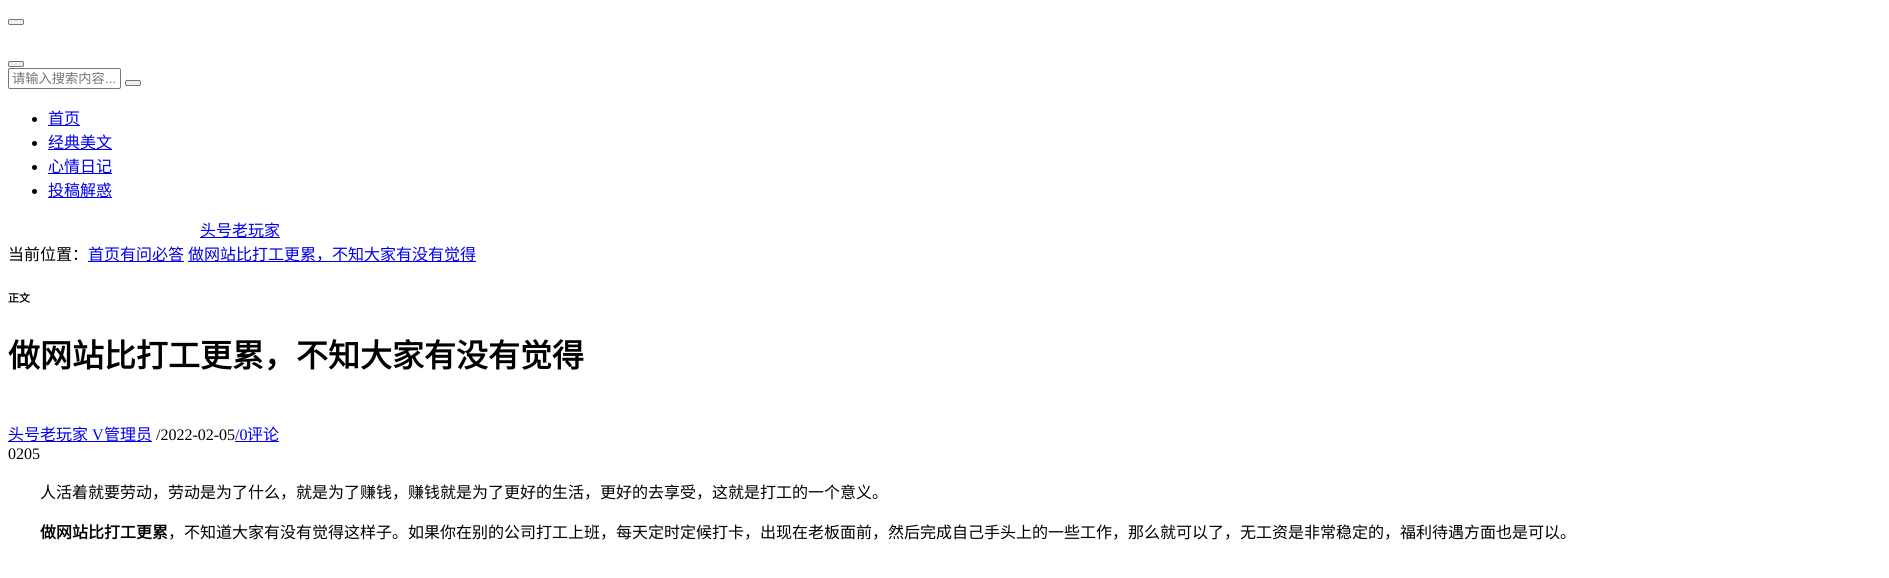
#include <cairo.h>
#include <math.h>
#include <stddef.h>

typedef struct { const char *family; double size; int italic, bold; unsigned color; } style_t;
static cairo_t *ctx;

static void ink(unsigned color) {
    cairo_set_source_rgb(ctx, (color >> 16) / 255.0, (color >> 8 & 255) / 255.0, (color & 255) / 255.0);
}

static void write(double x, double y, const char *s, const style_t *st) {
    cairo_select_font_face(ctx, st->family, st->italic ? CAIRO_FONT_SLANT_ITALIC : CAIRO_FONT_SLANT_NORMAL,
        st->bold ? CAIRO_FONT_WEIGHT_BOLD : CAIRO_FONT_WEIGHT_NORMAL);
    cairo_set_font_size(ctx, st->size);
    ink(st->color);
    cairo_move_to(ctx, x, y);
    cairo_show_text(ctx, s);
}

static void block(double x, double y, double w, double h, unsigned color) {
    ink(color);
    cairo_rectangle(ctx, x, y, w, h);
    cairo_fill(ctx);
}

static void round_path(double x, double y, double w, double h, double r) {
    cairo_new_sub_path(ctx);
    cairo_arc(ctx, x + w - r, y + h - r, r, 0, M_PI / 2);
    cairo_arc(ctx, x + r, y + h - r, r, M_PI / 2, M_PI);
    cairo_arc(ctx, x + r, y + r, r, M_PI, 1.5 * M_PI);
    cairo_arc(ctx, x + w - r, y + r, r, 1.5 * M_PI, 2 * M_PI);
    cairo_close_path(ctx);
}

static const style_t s1 = {"Noto Sans CJK SC", 13.25, 0, 0, 0x757575};
static const style_t s2 = {"Liberation Sans", 13.25, 0, 0, 0x757575};
static const style_t s3 = {"Noto Sans CJK SC", 16, 0, 0, 0x0000ee};
static const style_t s4 = {"Noto Sans CJK SC", 16, 0, 0, 0x000000};
static const style_t s5 = {"Noto Sans CJK SC", 11, 0, 1, 0x000000};
static const style_t s6 = {"Noto Sans CJK SC", 32, 0, 1, 0x000000};
static const style_t s7 = {"Liberation Serif", 16, 0, 0, 0x0000ee};
static const style_t s8 = {"Liberation Serif", 16, 0, 0, 0x000000};
static const style_t s9 = {"Noto Sans CJK SC", 16, 0, 1, 0x000000};

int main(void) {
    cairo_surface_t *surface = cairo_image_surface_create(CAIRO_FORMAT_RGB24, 1889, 578);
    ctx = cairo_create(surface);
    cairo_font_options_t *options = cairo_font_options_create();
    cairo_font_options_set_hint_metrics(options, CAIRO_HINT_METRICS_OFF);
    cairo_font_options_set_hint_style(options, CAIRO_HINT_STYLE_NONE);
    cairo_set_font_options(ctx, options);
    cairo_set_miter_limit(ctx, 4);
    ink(0xffffff);
    cairo_paint(ctx);
    ink(0xefefef);
    round_path(8.5, 19.5, 15, 5, 1.5);
    cairo_fill_preserve(ctx);
    ink(0x767676);
    cairo_set_line_width(ctx, 1);
    cairo_stroke(ctx);
    ink(0xefefef);
    round_path(8.5, 61.5, 15, 5, 1.5);
    cairo_fill_preserve(ctx);
    ink(0x767676);
    cairo_stroke(ctx);
    round_path(8.5, 68.5, 112, 20, 1.5);
    cairo_stroke(ctx);
    write(12, 83, "请输入搜索内容", &s1);
    write(105, 83, "...", &s2);
    ink(0xefefef);
    round_path(125.5, 80.5, 15, 5, 1.5);
    cairo_fill_preserve(ctx);
    ink(0x767676);
    cairo_stroke(ctx);
    ink(0x000000);
    cairo_arc(ctx, 34.5, 119.5, 2.5, 0, 2 * M_PI);
    cairo_fill(ctx);
    block(48, 125, 32, 1, 0x0000ee);
    write(48, 124, "首页", &s3);
    ink(0x000000);
    cairo_new_path(ctx);
    cairo_arc(ctx, 34.5, 143.5, 2.5, 0, 2 * M_PI);
    cairo_fill(ctx);
    block(48, 149, 64, 1, 0x0000ee);
    write(48, 148, "经典美文", &s3);
    ink(0x000000);
    cairo_new_path(ctx);
    cairo_arc(ctx, 34.5, 167.5, 2.5, 0, 2 * M_PI);
    cairo_fill(ctx);
    block(48, 173, 64, 1, 0x0000ee);
    write(48, 172, "心情日记", &s3);
    ink(0x000000);
    cairo_new_path(ctx);
    cairo_arc(ctx, 34.5, 191.5, 2.5, 0, 2 * M_PI);
    cairo_fill(ctx);
    block(48, 197, 64, 1, 0x0000ee);
    write(48, 196, "投稿解惑", &s3);
    block(200, 237, 80, 1, 0x0000ee);
    write(200, 236, "头号老玩家", &s3);
    write(8, 260, "当前位置：", &s4);
    block(88, 261, 96, 1, 0x0000ee);
    write(88, 260, "首页有问必答", &s3);
    block(188, 261, 288, 1, 0x0000ee);
    write(188, 260, "做网站比打工更累，不知大家有没有觉得", &s3);
    write(8, 302, "正文", &s5);
    write(8, 367, "做网站比打工更累，不知大家有没有觉得", &s6);
    block(8, 441, 144, 1, 0x0000ee);
    write(8, 440, "头号老玩家", &s3);
    write(92, 440, "V", &s7);
    write(104, 440, "管理员", &s3);
    write(156, 440, "/2022-02-05", &s8);
    write(235, 440, "/0", &s7);
    block(235, 441, 44, 1, 0x0000ee);
    write(247, 440, "评论", &s3);
    write(8, 459, "0205", &s8);
    write(40, 498, "人活着就要劳动，劳动是为了什么，就是为了赚钱，赚钱就是为了更好的生活，更好的去享受，这就是打工的一个意义。", &s4);
    write(40, 538, "做网站比打工更累", &s9);
    write(168, 538, "，不知道大家有没有觉得这样子。如果你在别的公司打工上班，每天定时定候打卡，出现在老板面前，然后完成自己手头上的一些工作，那么就可以了，无工资是非常稳定的，福利待遇方面也是可以。", &s4);
    cairo_surface_write_to_png(surface, "screenshot.png");
    cairo_font_options_destroy(options);
    cairo_destroy(ctx);
    cairo_surface_destroy(surface);
    return 0;
}
